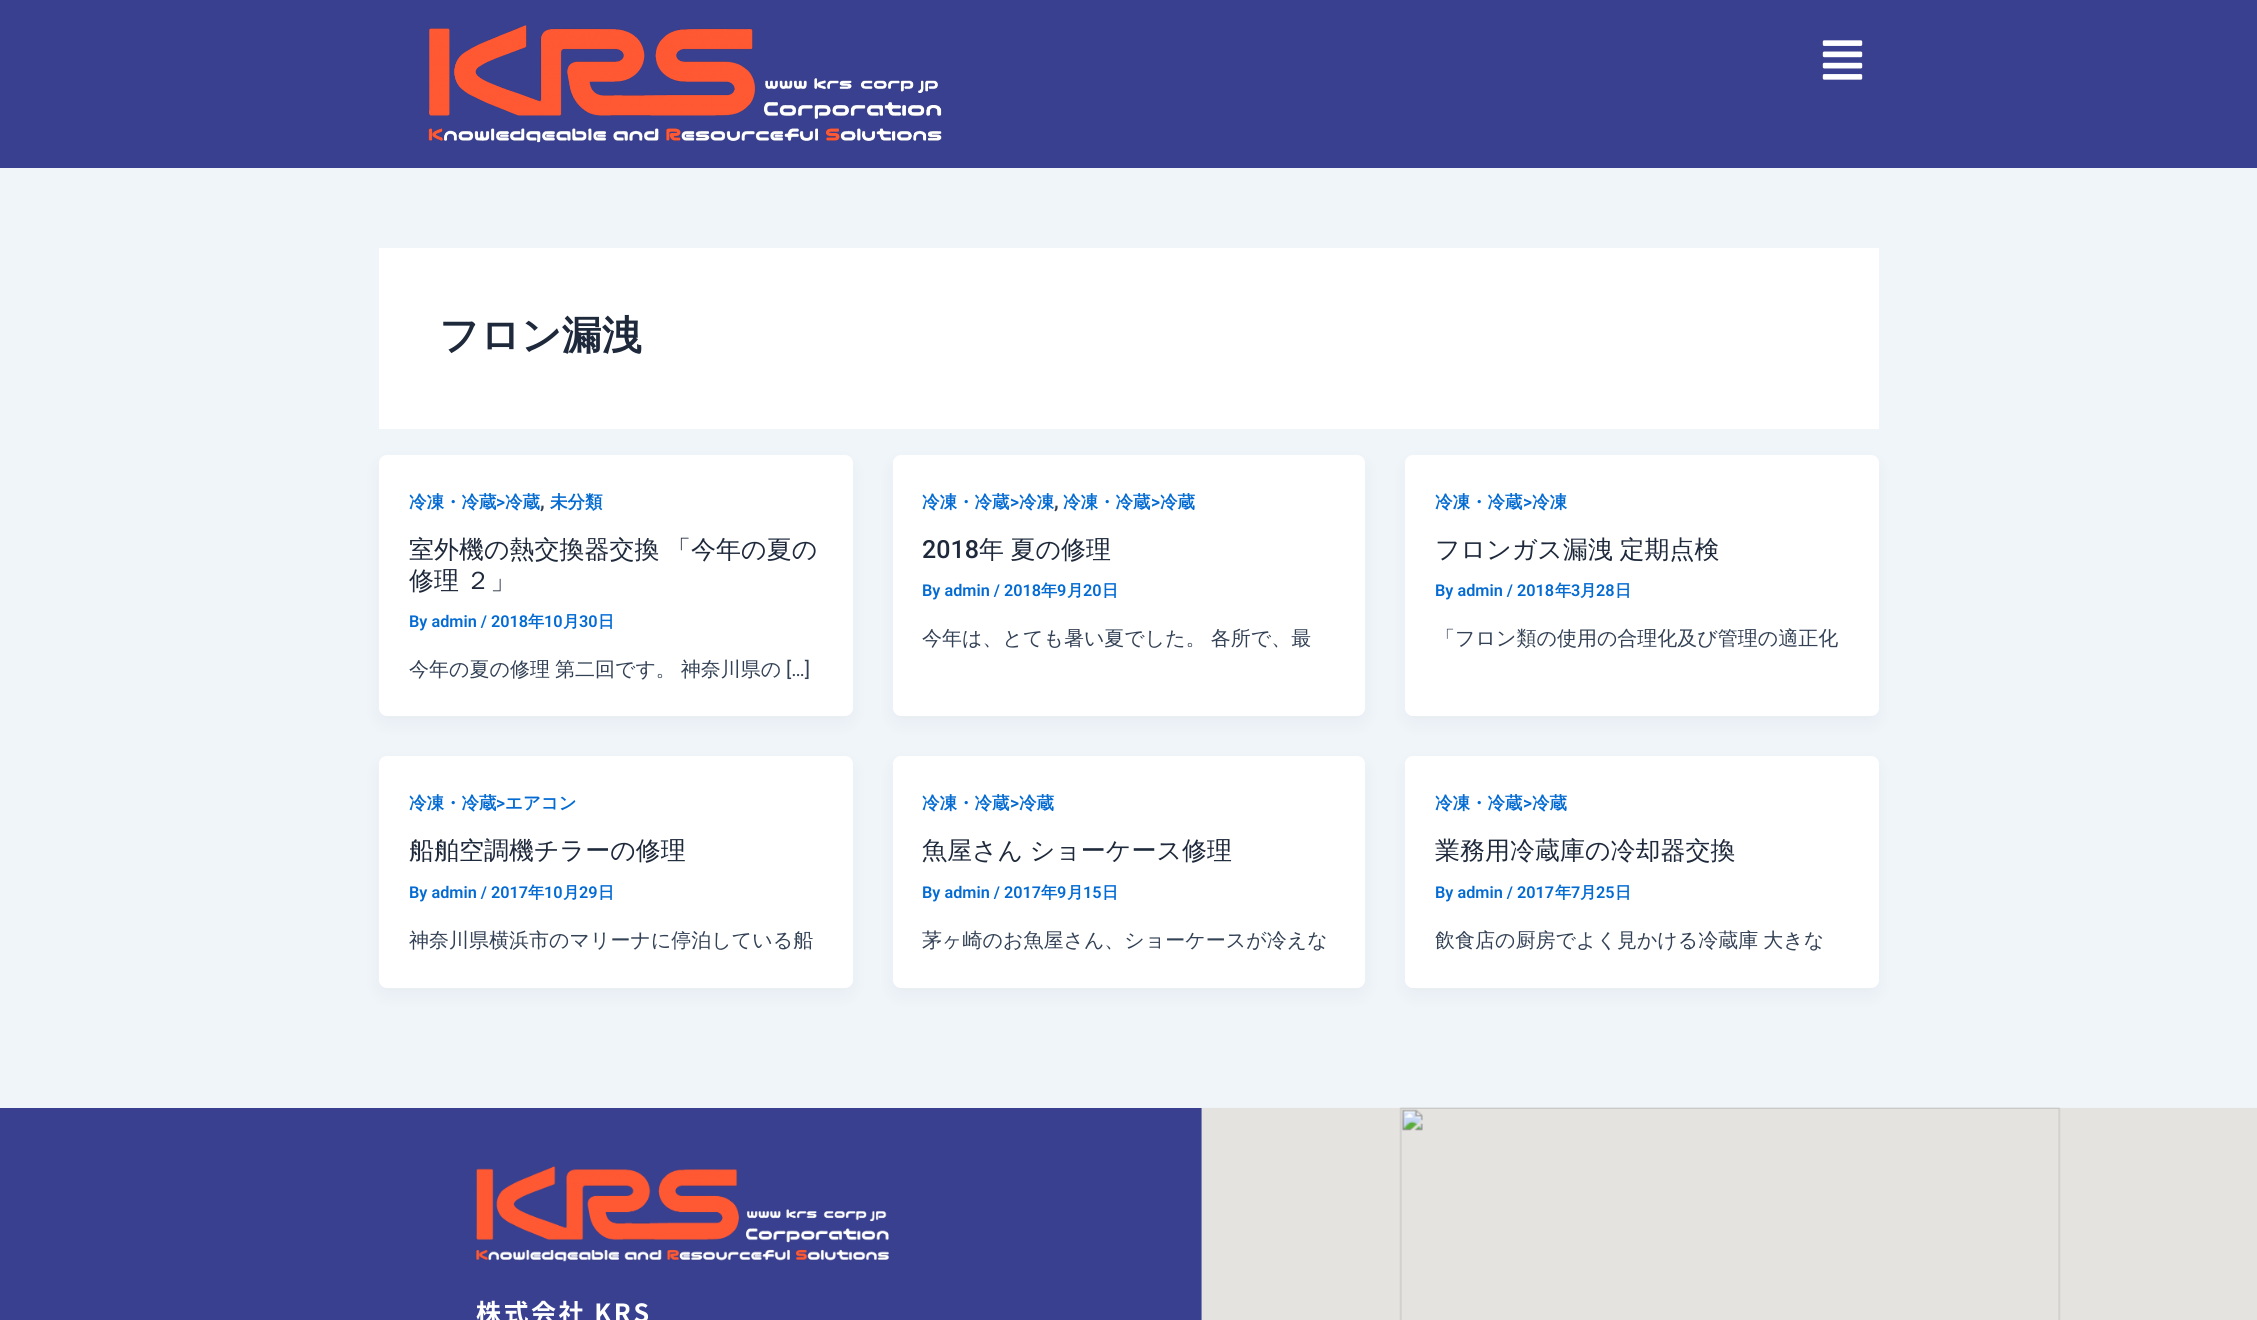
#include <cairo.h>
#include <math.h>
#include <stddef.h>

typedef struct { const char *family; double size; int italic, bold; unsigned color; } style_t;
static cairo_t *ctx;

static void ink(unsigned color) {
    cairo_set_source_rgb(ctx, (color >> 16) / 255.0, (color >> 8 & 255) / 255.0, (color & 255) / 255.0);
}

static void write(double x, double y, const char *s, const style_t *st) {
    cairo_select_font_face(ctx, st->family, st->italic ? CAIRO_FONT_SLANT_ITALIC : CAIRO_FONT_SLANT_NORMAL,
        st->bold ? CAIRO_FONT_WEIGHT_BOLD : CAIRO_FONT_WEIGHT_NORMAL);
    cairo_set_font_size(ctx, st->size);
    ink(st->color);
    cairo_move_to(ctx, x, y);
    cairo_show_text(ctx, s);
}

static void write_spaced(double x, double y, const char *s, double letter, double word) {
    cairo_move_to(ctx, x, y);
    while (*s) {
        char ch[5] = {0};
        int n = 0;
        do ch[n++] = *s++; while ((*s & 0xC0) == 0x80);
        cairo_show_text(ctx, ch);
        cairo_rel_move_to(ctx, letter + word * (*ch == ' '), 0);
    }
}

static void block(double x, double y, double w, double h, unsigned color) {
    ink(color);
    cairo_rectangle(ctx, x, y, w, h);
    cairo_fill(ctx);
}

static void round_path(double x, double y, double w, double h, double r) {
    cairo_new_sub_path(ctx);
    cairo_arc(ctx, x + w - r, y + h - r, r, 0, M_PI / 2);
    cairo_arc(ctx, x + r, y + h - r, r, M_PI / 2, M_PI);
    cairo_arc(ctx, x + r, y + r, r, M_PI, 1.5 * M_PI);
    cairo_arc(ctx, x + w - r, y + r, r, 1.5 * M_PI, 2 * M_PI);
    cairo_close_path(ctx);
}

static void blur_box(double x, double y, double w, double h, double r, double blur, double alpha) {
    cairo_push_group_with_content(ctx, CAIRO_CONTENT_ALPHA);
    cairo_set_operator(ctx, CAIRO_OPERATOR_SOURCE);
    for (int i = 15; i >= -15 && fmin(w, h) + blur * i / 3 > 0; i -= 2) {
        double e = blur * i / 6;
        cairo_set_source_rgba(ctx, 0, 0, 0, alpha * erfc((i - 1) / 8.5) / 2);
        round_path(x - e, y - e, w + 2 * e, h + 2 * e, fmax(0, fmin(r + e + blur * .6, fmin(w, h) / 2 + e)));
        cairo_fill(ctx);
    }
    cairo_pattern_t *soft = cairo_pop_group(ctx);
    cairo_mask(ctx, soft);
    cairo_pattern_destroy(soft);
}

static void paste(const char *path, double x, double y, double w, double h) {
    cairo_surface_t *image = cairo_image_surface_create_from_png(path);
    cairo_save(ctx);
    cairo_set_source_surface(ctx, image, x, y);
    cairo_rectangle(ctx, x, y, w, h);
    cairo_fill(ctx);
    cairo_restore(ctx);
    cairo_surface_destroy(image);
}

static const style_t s1 = {"WenQuanYi Zen Hei", 40, 0, 1, 0x1e293b};
static const style_t s2 = {"WenQuanYi Zen Hei", 17.5, 0, 1, 0x046bd2};
static const style_t s3 = {"Roboto SemiBold", 17.5, 0, 0, 0x046bd2};
static const style_t s4 = {"Roboto SemiBold", 20, 0, 0, 0x334155};
static const style_t s5 = {"Roboto SemiBold", 16.25, 0, 0, 0x046bd2};
static const style_t s6 = {"WenQuanYi Zen Hei", 16.25, 0, 1, 0x046bd2};
static const style_t s7 = {"Roboto", 20, 0, 0, 0x334155};
static const style_t s8 = {"Roboto Medium", 25, 0, 0, 0x1e293b};
static const style_t s9 = {"WenQuanYi Zen Hei Medium", 20, 0, 0, 0x334155};
static const style_t s10 = {"WenQuanYi Zen Hei Medium", 25, 0, 0, 0x1e293b};

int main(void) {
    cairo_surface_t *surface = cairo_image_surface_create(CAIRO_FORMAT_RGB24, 2257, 1320);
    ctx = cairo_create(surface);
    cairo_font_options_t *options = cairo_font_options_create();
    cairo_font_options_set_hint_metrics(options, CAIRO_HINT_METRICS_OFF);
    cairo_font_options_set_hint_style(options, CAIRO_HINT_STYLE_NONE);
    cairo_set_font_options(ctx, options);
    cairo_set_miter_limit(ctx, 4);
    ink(0xf0f5fa);
    cairo_paint(ctx);
    block(0, 0, 2257, 168, 0x394090);
    paste("pic1.png", 428, 25, 514, 118);
    paste("pic2.png", 1822, 40, 41, 40);
    block(379, 248, 1500, 181, 0xffffff);
    write(439, 349, "フロン漏洩", &s1);
    ink(0x101828);
    blur_box(381, 465, 469, 256, 5, 9.5, 0.05);
    ink(0xffffff);
    round_path(379, 455, 474, 261, 8);
    cairo_fill(ctx);
    write(409, 508, "冷凍・冷蔵", &s2);
    write(496, 508, ">", &s3);
    write(505, 508, "冷蔵", &s2);
    write(550, 508, "未分類", &s2);
    write(540, 508, ",", &s4);
    cairo_select_font_face(ctx, "WenQuanYi Zen Hei Medium", CAIRO_FONT_SLANT_NORMAL, CAIRO_FONT_WEIGHT_NORMAL);
    cairo_set_font_size(ctx, 25);
    ink(0x1e293b);
    write_spaced(409, 558, "室外機の熱交換器交換 「今年の夏の", 0, -1);
    write_spaced(409, 589, "修理 ２」", 0, -1);
    write(409, 627, "By admin / 2018", &s5);
    write(528, 627, "年", &s6);
    write(544, 627, "10", &s5);
    write(563, 627, "月", &s6);
    write(579, 627, "30", &s5);
    write(598, 627, "日", &s6);
    cairo_select_font_face(ctx, "WenQuanYi Zen Hei Medium", CAIRO_FONT_SLANT_NORMAL, CAIRO_FONT_WEIGHT_NORMAL);
    cairo_set_font_size(ctx, 20);
    ink(0x334155);
    write_spaced(409, 676, "今年の夏の修理 第二回です。 神奈川県の", 0, -1);
    write(786, 676, "[…]", &s7);
    ink(0x101828);
    blur_box(895, 465, 468, 256, 5, 9.5, 0.05);
    ink(0xffffff);
    round_path(893, 455, 472, 261, 8);
    cairo_fill(ctx);
    write(922, 508, "冷凍・冷蔵", &s2);
    write(1010, 508, ">", &s3);
    write(1019, 508, "冷凍", &s2);
    write(1063, 508, "冷凍・冷蔵", &s2);
    write(1151, 508, ">", &s3);
    write(1160, 508, "冷蔵", &s2);
    write(1054, 508, ",", &s4);
    write(922, 558, "2018", &s8);
    cairo_select_font_face(ctx, "WenQuanYi Zen Hei Medium", CAIRO_FONT_SLANT_NORMAL, CAIRO_FONT_WEIGHT_NORMAL);
    write_spaced(979, 558, "年 夏の修理", 0, -1);
    write(922, 596, "By admin / 2018", &s5);
    write(1041, 596, "年", &s6);
    write(1057, 596, "9", &s5);
    write(1067, 596, "月", &s6);
    write(1083, 596, "20", &s5);
    write(1102, 596, "日", &s6);
    cairo_select_font_face(ctx, "WenQuanYi Zen Hei Medium", CAIRO_FONT_SLANT_NORMAL, CAIRO_FONT_WEIGHT_NORMAL);
    cairo_set_font_size(ctx, 20);
    ink(0x334155);
    write_spaced(922, 645, "今年は、とても暑い夏でした。 各所で、最", 0, -1);
    ink(0x101828);
    blur_box(1408, 465, 468, 256, 5, 9.5, 0.05);
    ink(0xffffff);
    round_path(1405, 455, 474, 261, 8);
    cairo_fill(ctx);
    write(1435, 508, "冷凍・冷蔵", &s2);
    write(1523, 508, ">", &s3);
    write(1532, 508, "冷凍", &s2);
    cairo_select_font_face(ctx, "WenQuanYi Zen Hei Medium", CAIRO_FONT_SLANT_NORMAL, CAIRO_FONT_WEIGHT_NORMAL);
    cairo_set_font_size(ctx, 25);
    ink(0x1e293b);
    write_spaced(1435, 558, "フロンガス漏洩 定期点検", 0, -1);
    write(1435, 596, "By admin / 2018", &s5);
    write(1555, 596, "年", &s6);
    write(1571, 596, "3", &s5);
    write(1580, 596, "月", &s6);
    write(1596, 596, "28", &s5);
    write(1615, 596, "日", &s6);
    write(1435, 645, "「フロン類の使用の合理化及び管理の適正化", &s9);
    ink(0x101828);
    blur_box(381, 766, 469, 227, 5, 9.5, 0.05);
    ink(0xffffff);
    round_path(379, 756, 474, 232, 8);
    cairo_fill(ctx);
    write(409, 809, "冷凍・冷蔵", &s2);
    write(496, 809, ">", &s3);
    write(505, 809, "エアコン", &s2);
    write(409, 859, "船舶空調機チラーの修理", &s10);
    write(409, 898, "By admin / 2017", &s5);
    write(528, 898, "年", &s6);
    write(544, 898, "10", &s5);
    write(563, 898, "月", &s6);
    write(579, 898, "29", &s5);
    write(598, 898, "日", &s6);
    write(409, 947, "神奈川県横浜市のマリーナに停泊している船", &s9);
    ink(0x101828);
    blur_box(895, 766, 468, 227, 5, 9.5, 0.05);
    ink(0xffffff);
    round_path(893, 756, 472, 232, 8);
    cairo_fill(ctx);
    write(922, 809, "冷凍・冷蔵", &s2);
    write(1010, 809, ">", &s3);
    write(1019, 809, "冷蔵", &s2);
    cairo_select_font_face(ctx, "WenQuanYi Zen Hei Medium", CAIRO_FONT_SLANT_NORMAL, CAIRO_FONT_WEIGHT_NORMAL);
    cairo_set_font_size(ctx, 25);
    ink(0x1e293b);
    write_spaced(922, 859, "魚屋さん ショーケース修理", 0, -1);
    write(922, 898, "By admin / 2017", &s5);
    write(1041, 898, "年", &s6);
    write(1057, 898, "9", &s5);
    write(1067, 898, "月", &s6);
    write(1083, 898, "15", &s5);
    write(1102, 898, "日", &s6);
    write(922, 947, "茅ヶ崎のお魚屋さん、ショーケースが冷えな", &s9);
    ink(0x101828);
    blur_box(1408, 766, 468, 227, 5, 9.5, 0.05);
    ink(0xffffff);
    round_path(1405, 756, 474, 232, 8);
    cairo_fill(ctx);
    write(1435, 809, "冷凍・冷蔵", &s2);
    write(1523, 809, ">", &s3);
    write(1532, 809, "冷蔵", &s2);
    write(1435, 859, "業務用冷蔵庫の冷却器交換", &s10);
    write(1435, 898, "By admin / 2017", &s5);
    write(1555, 898, "年", &s6);
    write(1571, 898, "7", &s5);
    write(1580, 898, "月", &s6);
    write(1596, 898, "25", &s5);
    write(1615, 898, "日", &s6);
    cairo_select_font_face(ctx, "WenQuanYi Zen Hei Medium", CAIRO_FONT_SLANT_NORMAL, CAIRO_FONT_WEIGHT_NORMAL);
    cairo_set_font_size(ctx, 20);
    ink(0x334155);
    write_spaced(1435, 947, "飲食店の厨房でよく見かける冷蔵庫 大きな", 0, -1);
    block(0, 1108, 1202, 212, 0x394090);
    paste("pic3.png", 476, 1166, 413, 96);
    cairo_select_font_face(ctx, "Noto Sans JP", CAIRO_FONT_SLANT_NORMAL, CAIRO_FONT_WEIGHT_BOLD);
    cairo_set_font_size(ctx, 25);
    ink(0xffffff);
    write_spaced(476, 1322, "株式会社 KRS", 2.5, 0);
    paste("pic4.png", 1201, 1107, 1056, 213);
    cairo_surface_write_to_png(surface, "screenshot.png");
    cairo_font_options_destroy(options);
    cairo_destroy(ctx);
    cairo_surface_destroy(surface);
    return 0;
}
